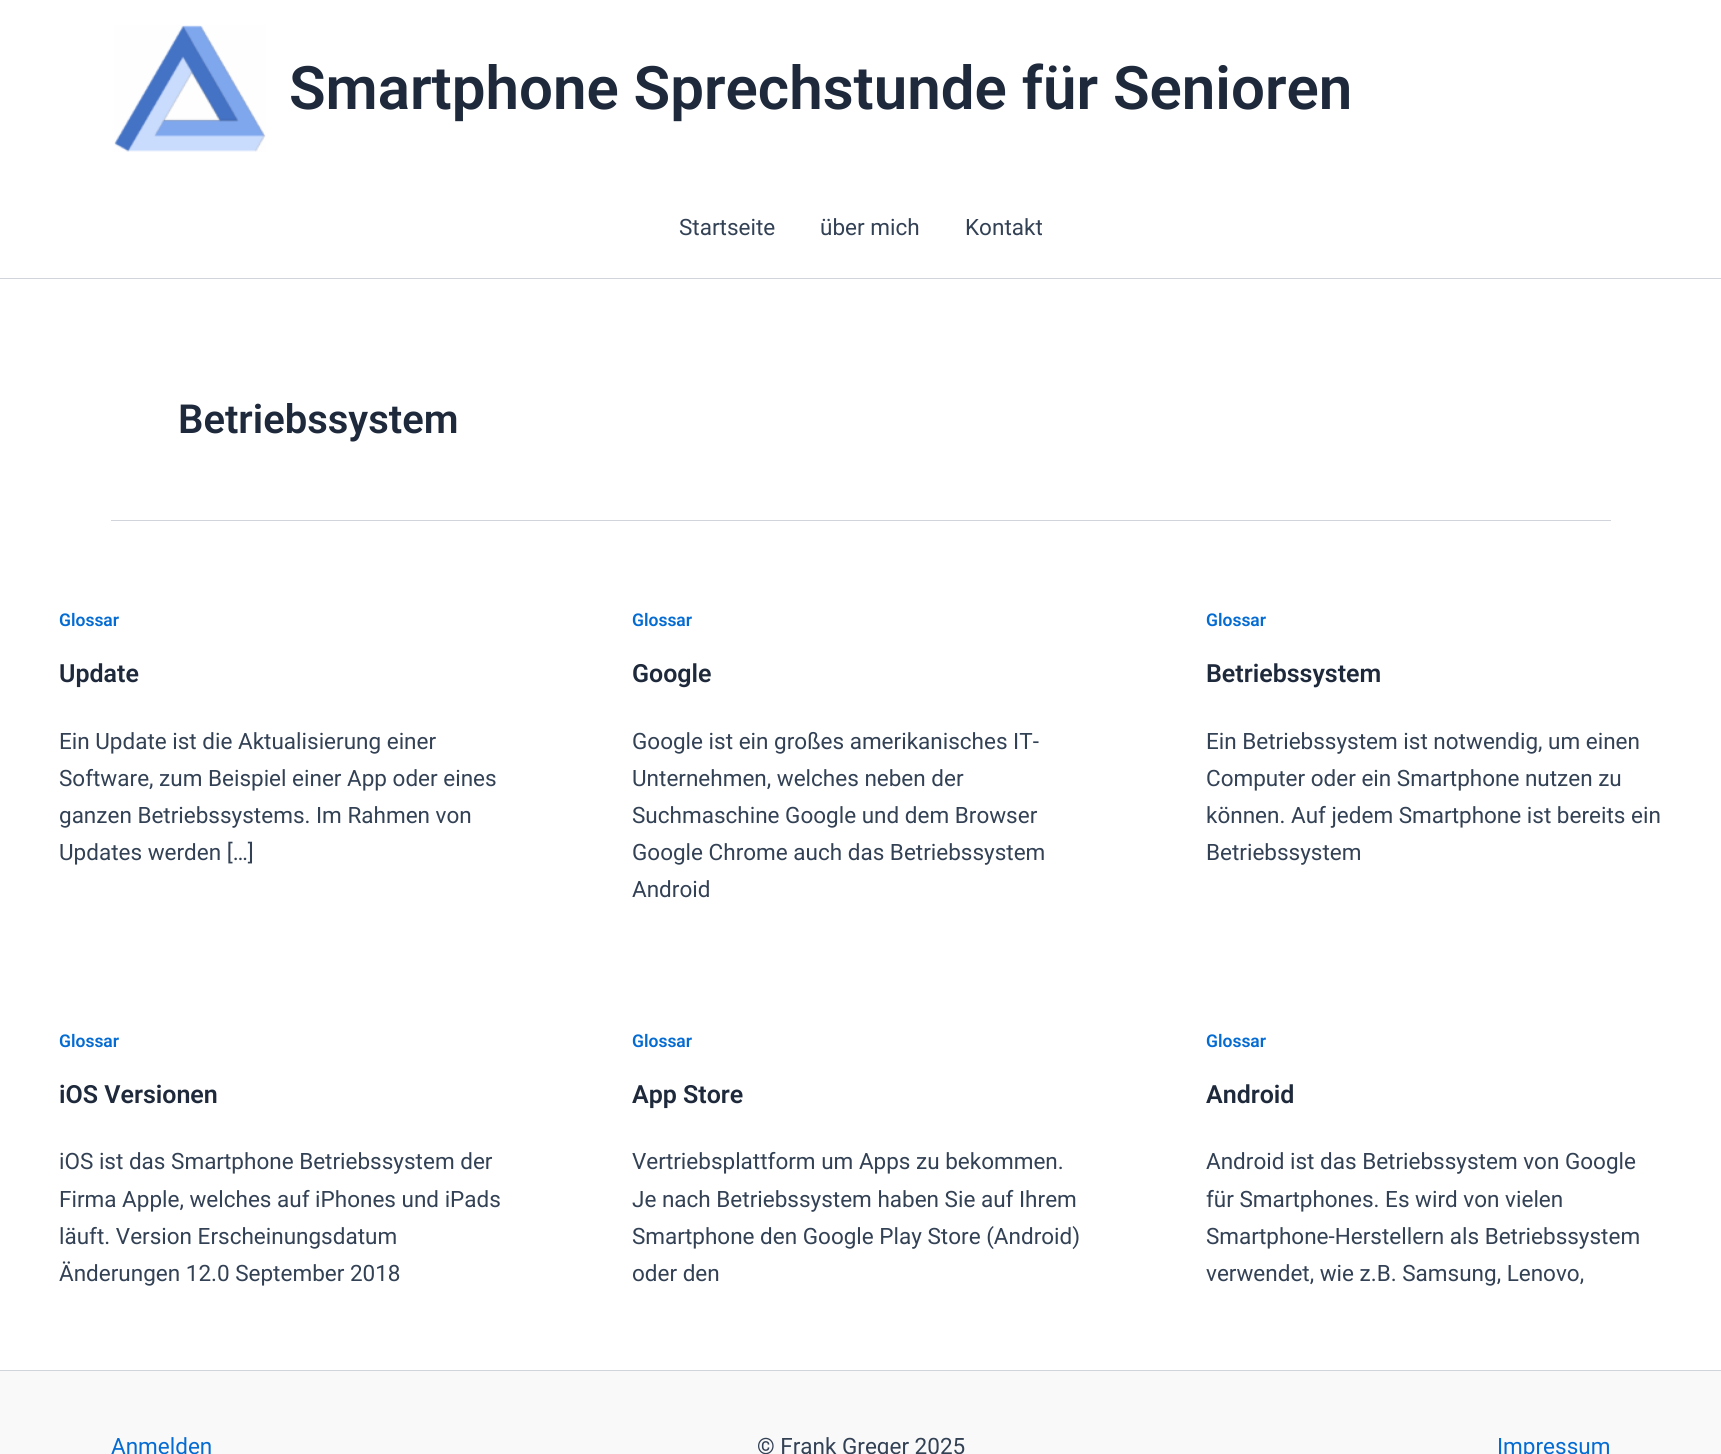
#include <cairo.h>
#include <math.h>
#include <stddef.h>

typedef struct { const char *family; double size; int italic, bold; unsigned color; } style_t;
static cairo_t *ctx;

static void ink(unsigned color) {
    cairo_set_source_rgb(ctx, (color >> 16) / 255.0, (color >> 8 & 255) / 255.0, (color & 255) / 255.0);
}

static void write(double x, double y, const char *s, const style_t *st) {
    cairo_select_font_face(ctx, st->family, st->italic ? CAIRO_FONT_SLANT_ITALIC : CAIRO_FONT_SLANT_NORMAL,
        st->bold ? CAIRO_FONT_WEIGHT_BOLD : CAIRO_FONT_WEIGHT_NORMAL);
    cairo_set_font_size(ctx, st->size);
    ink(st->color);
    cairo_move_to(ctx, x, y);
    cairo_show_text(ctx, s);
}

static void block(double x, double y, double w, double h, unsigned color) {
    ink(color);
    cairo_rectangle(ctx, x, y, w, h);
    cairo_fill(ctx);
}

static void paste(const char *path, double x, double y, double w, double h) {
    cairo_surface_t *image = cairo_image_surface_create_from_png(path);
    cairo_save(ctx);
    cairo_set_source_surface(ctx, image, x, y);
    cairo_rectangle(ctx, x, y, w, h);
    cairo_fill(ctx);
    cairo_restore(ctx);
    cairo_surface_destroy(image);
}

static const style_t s1 = {"Roboto SemiBold", 60, 0, 0, 0x1e293b};
static const style_t s2 = {"Roboto", 22.5, 0, 0, 0x334155};
static const style_t s3 = {"Roboto SemiBold", 40, 0, 0, 0x1e293b};
static const style_t s4 = {"Roboto SemiBold", 17.5, 0, 0, 0x046bd2};
static const style_t s5 = {"Roboto SemiBold", 25, 0, 0, 0x1e293b};
static const style_t s6 = {"Roboto", 22.5, 0, 0, 0x046bd2};

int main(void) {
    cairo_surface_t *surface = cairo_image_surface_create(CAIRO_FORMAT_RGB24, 1721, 1454);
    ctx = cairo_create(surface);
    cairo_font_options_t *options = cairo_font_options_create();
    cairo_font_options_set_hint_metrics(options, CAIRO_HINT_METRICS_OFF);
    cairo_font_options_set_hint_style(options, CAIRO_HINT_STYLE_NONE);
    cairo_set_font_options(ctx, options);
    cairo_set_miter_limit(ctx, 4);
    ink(0xffffff);
    cairo_paint(ctx);
    block(0, 278, 1721, 1, 0xd1d5db);
    paste("pic1.png", 114, 25, 152, 127);
    write(289, 109, "Smartphone Sprechstunde für Senioren", &s1);
    write(679, 235, "Startseite", &s2);
    write(820, 235, "über mich", &s2);
    write(965, 235, "Kontakt", &s2);
    block(111, 520, 1500, 1, 0xd1d5db);
    write(178, 433, "Betriebssystem", &s3);
    write(59, 626, "Glossar", &s4);
    write(59, 682, "Update", &s5);
    write(59, 749, "Ein Update ist die Aktualisierung einer", &s2);
    write(59, 786, "Software, zum Beispiel einer App oder eines", &s2);
    write(59, 823, "ganzen Betriebssystems. Im Rahmen von", &s2);
    write(59, 860, "Updates werden […]", &s2);
    write(632, 626, "Glossar", &s4);
    write(632, 682, "Google", &s5);
    write(632, 749, "Google ist ein großes amerikanisches IT-", &s2);
    write(632, 786, "Unternehmen, welches neben der", &s2);
    write(632, 823, "Suchmaschine Google und dem Browser", &s2);
    write(632, 860, "Google Chrome auch das Betriebssystem", &s2);
    write(632, 897, "Android", &s2);
    write(1206, 626, "Glossar", &s4);
    write(1206, 682, "Betriebssystem", &s5);
    write(1206, 749, "Ein Betriebssystem ist notwendig, um einen", &s2);
    write(1206, 786, "Computer oder ein Smartphone nutzen zu", &s2);
    write(1206, 823, "können. Auf jedem Smartphone ist bereits ein", &s2);
    write(1206, 860, "Betriebssystem", &s2);
    write(59, 1047, "Glossar", &s4);
    write(59, 1103, "iOS Versionen", &s5);
    write(59, 1169, "iOS ist das Smartphone Betriebssystem der", &s2);
    write(59, 1207, "Firma Apple, welches auf iPhones und iPads", &s2);
    write(59, 1244, "läuft. Version Erscheinungsdatum", &s2);
    write(59, 1281, "Änderungen 12.0 September 2018", &s2);
    write(632, 1047, "Glossar", &s4);
    write(632, 1103, "App Store", &s5);
    write(632, 1169, "Vertriebsplattform um Apps zu bekommen.", &s2);
    write(632, 1207, "Je nach Betriebssystem haben Sie auf Ihrem", &s2);
    write(632, 1244, "Smartphone den Google Play Store (Android)", &s2);
    write(632, 1281, "oder den", &s2);
    write(1206, 1047, "Glossar", &s4);
    write(1206, 1103, "Android", &s5);
    write(1206, 1169, "Android ist das Betriebssystem von Google", &s2);
    write(1206, 1207, "für Smartphones. Es wird von vielen", &s2);
    write(1206, 1244, "Smartphone-Herstellern als Betriebssystem", &s2);
    write(1206, 1281, "verwendet, wie z.B. Samsung, Lenovo,", &s2);
    block(0, 1371, 1721, 83, 0xf9f9f9);
    block(0, 1370, 1721, 1, 0xd1d5db);
    write(111, 1454, "Anmelden", &s6);
    write(757, 1454, "© Frank Greger 2025", &s2);
    write(1497, 1454, "Impressum", &s6);
    cairo_surface_write_to_png(surface, "screenshot.png");
    cairo_font_options_destroy(options);
    cairo_destroy(ctx);
    cairo_surface_destroy(surface);
    return 0;
}
